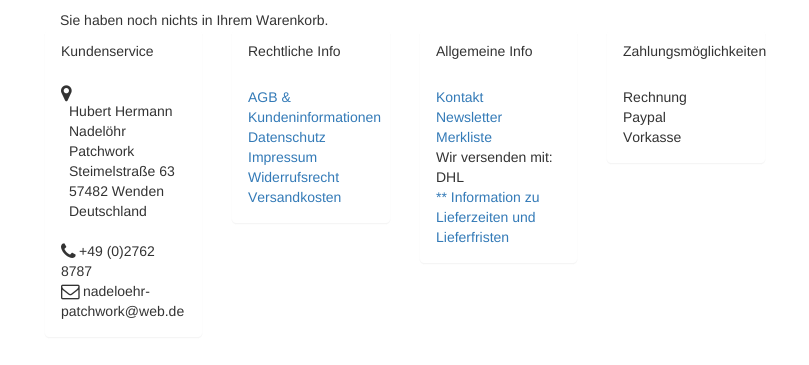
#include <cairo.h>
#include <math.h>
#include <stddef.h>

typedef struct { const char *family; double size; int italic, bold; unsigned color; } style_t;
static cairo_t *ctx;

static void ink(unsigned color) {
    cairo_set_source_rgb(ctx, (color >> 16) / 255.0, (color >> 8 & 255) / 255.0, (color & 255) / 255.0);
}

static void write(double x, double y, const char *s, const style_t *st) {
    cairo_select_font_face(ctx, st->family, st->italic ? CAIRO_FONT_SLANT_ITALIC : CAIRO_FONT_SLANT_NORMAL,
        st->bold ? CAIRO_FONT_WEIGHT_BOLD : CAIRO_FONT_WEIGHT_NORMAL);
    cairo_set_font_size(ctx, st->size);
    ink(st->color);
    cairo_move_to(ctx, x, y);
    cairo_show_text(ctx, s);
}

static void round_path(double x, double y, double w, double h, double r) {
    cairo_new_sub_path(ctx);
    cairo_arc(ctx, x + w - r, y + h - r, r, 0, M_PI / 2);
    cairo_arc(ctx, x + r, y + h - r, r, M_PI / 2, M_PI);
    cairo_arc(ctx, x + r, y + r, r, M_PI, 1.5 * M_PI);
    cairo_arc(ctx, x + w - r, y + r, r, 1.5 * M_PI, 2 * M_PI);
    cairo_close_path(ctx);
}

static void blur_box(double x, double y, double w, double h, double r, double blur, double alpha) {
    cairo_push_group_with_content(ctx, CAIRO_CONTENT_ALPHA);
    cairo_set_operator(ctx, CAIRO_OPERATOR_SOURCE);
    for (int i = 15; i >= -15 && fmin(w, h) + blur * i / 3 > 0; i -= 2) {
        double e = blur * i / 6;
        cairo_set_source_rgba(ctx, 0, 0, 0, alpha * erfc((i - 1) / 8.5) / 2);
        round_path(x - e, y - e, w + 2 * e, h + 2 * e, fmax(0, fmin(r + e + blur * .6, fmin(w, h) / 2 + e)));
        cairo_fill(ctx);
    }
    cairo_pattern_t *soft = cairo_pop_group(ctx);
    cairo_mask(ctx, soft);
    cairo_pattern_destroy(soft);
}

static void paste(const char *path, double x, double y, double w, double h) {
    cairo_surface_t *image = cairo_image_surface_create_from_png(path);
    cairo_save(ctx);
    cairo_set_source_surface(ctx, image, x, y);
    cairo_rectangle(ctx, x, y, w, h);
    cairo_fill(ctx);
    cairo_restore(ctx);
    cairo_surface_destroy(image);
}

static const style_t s1 = {"Liberation Sans", 14, 0, 0, 0x333333};
static const style_t s2 = {"Liberation Sans", 14, 0, 0, 0x337ab7};

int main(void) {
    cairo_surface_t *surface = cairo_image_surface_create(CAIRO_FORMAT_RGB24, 809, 365);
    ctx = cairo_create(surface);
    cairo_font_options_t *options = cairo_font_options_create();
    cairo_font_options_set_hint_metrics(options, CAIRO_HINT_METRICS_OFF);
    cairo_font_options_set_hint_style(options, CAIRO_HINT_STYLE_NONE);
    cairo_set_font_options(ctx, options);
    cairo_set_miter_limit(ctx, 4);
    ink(0xffffff);
    cairo_paint(ctx);
    write(60, 25, "Sie haben noch nichts in Ihrem Warenkorb.", &s1);
    ink(0x000000);
    blur_box(45, 31, 157, 307, 4, 0.5, 0.05);
    ink(0xffffff);
    round_path(45, 30, 157, 307, 4);
    cairo_fill(ctx);
    write(61, 56, "Kundenservice", &s1);
    paste("pic1.png", 61, 85, 11, 17);
    write(69, 116, "Hubert Hermann", &s1);
    write(69, 136, "Nadelöhr", &s1);
    write(69, 156, "Patchwork", &s1);
    write(69, 176, "Steimelstraße 63", &s1);
    write(69, 196, "57482 Wenden", &s1);
    write(69, 216, "Deutschland", &s1);
    paste("pic2.png", 61, 243, 15, 15);
    write(79, 256, "+49 (0)2762", &s1);
    write(61, 276, "8787", &s1);
    paste("pic3.png", 61, 284, 19, 16);
    write(83, 296, "nadeloehr-", &s1);
    write(61, 316, "patchwork@web.de", &s1);
    ink(0x000000);
    blur_box(232, 31, 158, 193, 4, 0.5, 0.05);
    ink(0xffffff);
    round_path(232, 30, 158, 193, 4);
    cairo_fill(ctx);
    write(248, 56, "Rechtliche Info", &s1);
    write(248, 102, "AGB &", &s2);
    write(248, 122, "Kundeninformationen", &s2);
    write(248, 142, "Datenschutz", &s2);
    write(248, 162, "Impressum", &s2);
    write(248, 182, "Widerrufsrecht", &s2);
    write(248, 202, "Versandkosten", &s2);
    ink(0x000000);
    blur_box(420, 31, 157, 233, 4, 0.5, 0.05);
    ink(0xffffff);
    round_path(420, 30, 157, 233, 4);
    cairo_fill(ctx);
    write(436, 56, "Allgemeine Info", &s1);
    write(436, 102, "Kontakt", &s2);
    write(436, 122, "Newsletter", &s2);
    write(436, 142, "Merkliste", &s2);
    write(436, 162, "Wir versenden mit:", &s1);
    write(436, 182, "DHL", &s1);
    write(436, 202, "** Information zu", &s2);
    write(436, 222, "Lieferzeiten und", &s2);
    write(436, 242, "Lieferfristen", &s2);
    ink(0x000000);
    blur_box(607, 31, 158, 133, 4, 0.5, 0.05);
    ink(0xffffff);
    round_path(607, 30, 158, 133, 4);
    cairo_fill(ctx);
    write(623, 56, "Zahlungsmöglichkeiten", &s1);
    write(623, 102, "Rechnung", &s1);
    write(623, 122, "Paypal", &s1);
    write(623, 142, "Vorkasse", &s1);
    cairo_surface_write_to_png(surface, "screenshot.png");
    cairo_font_options_destroy(options);
    cairo_destroy(ctx);
    cairo_surface_destroy(surface);
    return 0;
}
